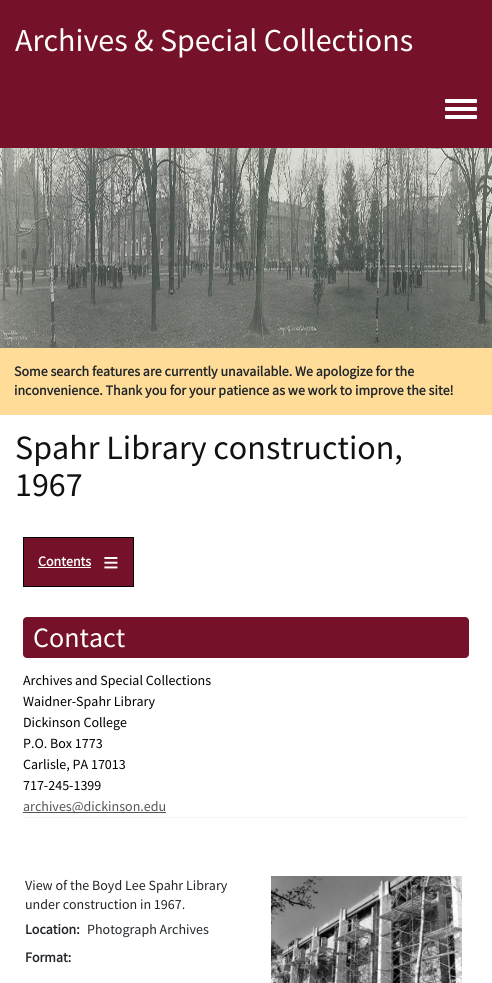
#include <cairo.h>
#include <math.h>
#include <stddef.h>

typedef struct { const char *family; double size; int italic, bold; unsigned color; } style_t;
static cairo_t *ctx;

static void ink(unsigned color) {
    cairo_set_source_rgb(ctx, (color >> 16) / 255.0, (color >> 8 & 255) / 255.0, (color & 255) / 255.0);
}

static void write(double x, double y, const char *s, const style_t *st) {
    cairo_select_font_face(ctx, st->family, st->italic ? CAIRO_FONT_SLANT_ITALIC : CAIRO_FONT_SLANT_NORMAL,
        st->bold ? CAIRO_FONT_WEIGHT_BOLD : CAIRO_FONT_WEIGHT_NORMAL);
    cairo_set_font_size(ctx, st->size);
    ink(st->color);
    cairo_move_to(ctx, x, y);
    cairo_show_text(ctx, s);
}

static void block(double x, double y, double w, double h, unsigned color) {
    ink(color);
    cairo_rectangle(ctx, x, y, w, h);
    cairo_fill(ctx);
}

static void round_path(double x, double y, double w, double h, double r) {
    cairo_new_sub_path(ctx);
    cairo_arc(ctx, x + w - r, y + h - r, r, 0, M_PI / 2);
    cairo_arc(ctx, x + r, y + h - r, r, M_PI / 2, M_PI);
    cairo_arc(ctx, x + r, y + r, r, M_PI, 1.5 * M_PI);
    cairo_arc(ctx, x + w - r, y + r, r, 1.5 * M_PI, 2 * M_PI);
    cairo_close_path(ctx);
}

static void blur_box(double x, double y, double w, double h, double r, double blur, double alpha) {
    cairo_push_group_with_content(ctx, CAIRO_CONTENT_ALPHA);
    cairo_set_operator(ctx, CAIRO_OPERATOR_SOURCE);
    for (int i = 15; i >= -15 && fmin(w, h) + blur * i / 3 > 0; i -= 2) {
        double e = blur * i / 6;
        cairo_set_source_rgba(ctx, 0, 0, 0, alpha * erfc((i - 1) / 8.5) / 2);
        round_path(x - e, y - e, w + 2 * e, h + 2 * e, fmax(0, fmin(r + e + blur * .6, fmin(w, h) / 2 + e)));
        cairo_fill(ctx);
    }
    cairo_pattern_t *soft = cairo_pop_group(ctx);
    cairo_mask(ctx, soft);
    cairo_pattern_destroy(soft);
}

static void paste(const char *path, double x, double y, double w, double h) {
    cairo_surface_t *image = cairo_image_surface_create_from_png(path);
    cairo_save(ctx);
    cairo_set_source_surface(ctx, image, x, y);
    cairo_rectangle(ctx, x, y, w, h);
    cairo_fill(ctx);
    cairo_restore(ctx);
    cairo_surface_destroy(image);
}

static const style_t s1 = {"Source Sans Pro", 32, 0, 0, 0xfffffe};
static const style_t s2 = {"Source Sans Pro", 14, 0, 1, 0x212529};
static const style_t s3 = {"Source Sans Pro", 34, 0, 0, 0x111111};
static const style_t s4 = {"Source Sans Pro", 14, 0, 1, 0xfffffe};
static const style_t s5 = {"Liberation Serif", 28, 0, 1, 0xfffffe};
static const style_t s6 = {"Source Sans Pro", 28, 0, 0, 0xfffffe};
static const style_t s7 = {"Source Sans Pro", 14, 0, 0, 0x000000};
static const style_t s8 = {"Source Sans Pro", 14, 0, 0, 0x555555};
static const style_t s9 = {"Source Sans Pro", 14, 0, 0, 0x212529};

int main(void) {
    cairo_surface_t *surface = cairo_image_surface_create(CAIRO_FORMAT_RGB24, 492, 983);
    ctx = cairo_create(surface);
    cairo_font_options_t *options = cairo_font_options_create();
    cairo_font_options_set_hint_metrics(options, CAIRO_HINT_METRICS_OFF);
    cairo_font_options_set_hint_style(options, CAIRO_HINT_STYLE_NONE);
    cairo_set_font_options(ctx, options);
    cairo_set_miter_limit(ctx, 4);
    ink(0xffffff);
    cairo_paint(ctx);
    block(0, 0, 492, 148, 0x751229);
    write(15, 51, "Archives & Special Collections", &s1);
    ink(0xffffff);
    round_path(445, 107, 32, 4, 1);
    cairo_fill(ctx);
    round_path(445, 99, 32, 4, 1);
    cairo_fill(ctx);
    round_path(445, 115, 32, 4, 1);
    cairo_fill(ctx);
    paste("pic1.png", 0, 148, 492, 200);
    block(0, 348, 492, 67, 0xffdd99);
    write(14, 376, "Some search features are currently unavailable. We apologize for the", &s2);
    write(14, 395, "inconvenience. Thank you for your patience as we work to improve the site!", &s2);
    write(15, 459, "Spahr Library construction,", &s3);
    write(15, 496, "1967", &s3);
    ink(0x751229);
    cairo_rectangle(ctx, 23.5, 537.5, 110, 49);
    cairo_fill_preserve(ctx);
    ink(0x000000);
    cairo_set_line_width(ctx, 1);
    cairo_stroke(ctx);
    write(38, 566, "Contents", &s4);
    block(38, 567, 53, 1, 0xffffff);
    write(103, 572, "≡", &s5);
    cairo_save(ctx);
    cairo_rectangle(ctx, 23, 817, 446, 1);
    cairo_clip(ctx);
    ink(0xa6977c);
    blur_box(23, 618, 446, 200, 0, 0.5, 0.1);
    cairo_restore(ctx);
    ink(0x751229);
    round_path(23, 617, 446, 41, 4);
    cairo_fill(ctx);
    write(33, 647, "Contact", &s6);
    write(23, 685, "Archives and Special Collections", &s7);
    write(23, 706, "Waidner-Spahr Library", &s7);
    write(23, 727, "Dickinson College", &s7);
    write(23, 748, "P.O. Box 1773", &s7);
    write(23, 769, "Carlisle, PA 17013", &s7);
    write(23, 790, "717-245-1399", &s7);
    block(23, 812, 143, 1, 0x555555);
    write(23, 811, "archives@dickinson.edu", &s8);
    write(25, 890, "View of the Boyd Lee Spahr Library", &s9);
    write(25, 909, "under construction in 1967.", &s9);
    write(25, 934, "Location:", &s2);
    write(87, 934, "Photograph Archives", &s9);
    write(25, 962, "Format:", &s2);
    paste("pic2.png", 271, 876, 191, 107);
    cairo_surface_write_to_png(surface, "screenshot.png");
    cairo_font_options_destroy(options);
    cairo_destroy(ctx);
    cairo_surface_destroy(surface);
    return 0;
}
